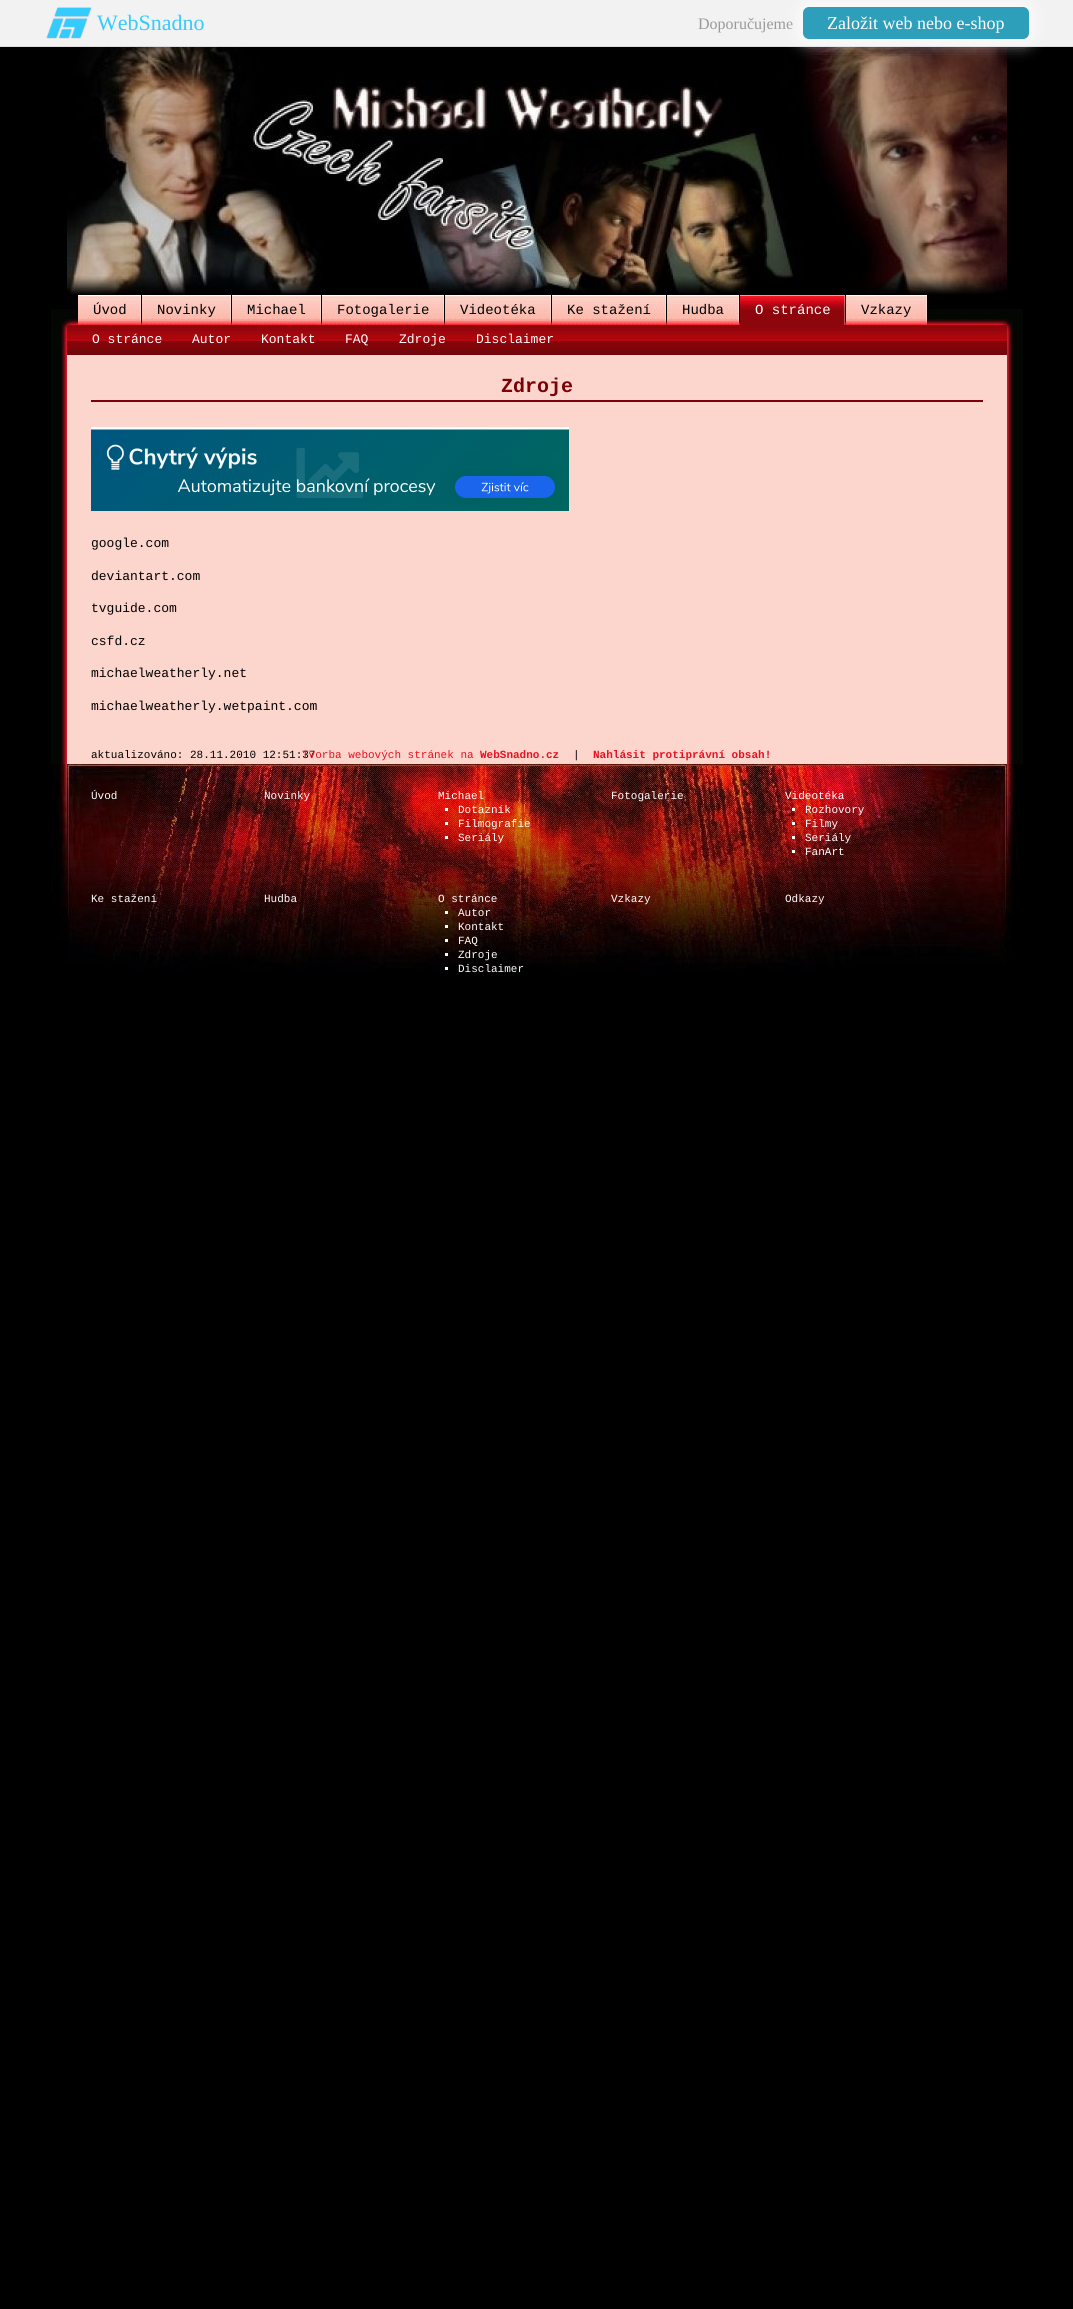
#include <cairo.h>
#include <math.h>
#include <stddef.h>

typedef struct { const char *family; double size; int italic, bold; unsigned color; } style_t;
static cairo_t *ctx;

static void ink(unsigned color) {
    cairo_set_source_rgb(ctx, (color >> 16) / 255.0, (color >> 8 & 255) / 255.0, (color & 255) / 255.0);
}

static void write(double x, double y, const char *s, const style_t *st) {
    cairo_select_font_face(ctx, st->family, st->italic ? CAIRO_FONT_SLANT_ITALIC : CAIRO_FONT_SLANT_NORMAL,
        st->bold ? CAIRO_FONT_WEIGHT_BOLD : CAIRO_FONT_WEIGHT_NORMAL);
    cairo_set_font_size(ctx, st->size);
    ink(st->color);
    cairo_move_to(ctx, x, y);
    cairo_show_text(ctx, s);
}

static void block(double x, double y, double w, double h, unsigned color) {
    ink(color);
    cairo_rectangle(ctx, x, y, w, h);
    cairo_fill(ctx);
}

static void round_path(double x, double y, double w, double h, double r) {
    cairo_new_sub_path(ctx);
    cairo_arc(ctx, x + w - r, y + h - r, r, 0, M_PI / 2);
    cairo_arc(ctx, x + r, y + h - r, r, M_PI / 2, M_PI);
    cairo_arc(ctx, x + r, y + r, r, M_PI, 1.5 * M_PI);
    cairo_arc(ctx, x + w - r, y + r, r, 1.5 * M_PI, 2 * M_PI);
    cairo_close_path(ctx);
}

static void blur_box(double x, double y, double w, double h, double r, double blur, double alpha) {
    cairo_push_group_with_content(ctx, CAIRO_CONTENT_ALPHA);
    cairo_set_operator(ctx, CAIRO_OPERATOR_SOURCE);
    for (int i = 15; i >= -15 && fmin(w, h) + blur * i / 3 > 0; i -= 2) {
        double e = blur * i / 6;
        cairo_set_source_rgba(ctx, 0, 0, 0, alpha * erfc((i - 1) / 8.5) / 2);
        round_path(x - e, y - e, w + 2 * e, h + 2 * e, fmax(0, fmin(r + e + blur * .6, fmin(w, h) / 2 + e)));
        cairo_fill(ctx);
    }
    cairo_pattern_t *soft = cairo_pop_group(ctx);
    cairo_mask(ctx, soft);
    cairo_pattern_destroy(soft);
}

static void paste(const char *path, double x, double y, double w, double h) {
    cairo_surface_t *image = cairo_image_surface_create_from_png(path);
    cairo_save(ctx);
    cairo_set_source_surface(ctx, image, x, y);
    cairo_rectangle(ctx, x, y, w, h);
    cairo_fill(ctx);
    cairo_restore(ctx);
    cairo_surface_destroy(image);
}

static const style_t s1 = {"Liberation Serif", 22, 0, 0, 0x34cbff};
static const style_t s2 = {"Liberation Serif", 16, 0, 0, 0x999999};
static const style_t s3 = {"Liberation Serif", 18, 0, 0, 0xffffff};
static const style_t s4 = {"Liberation Mono", 14, 0, 0, 0x000000};
static const style_t s5 = {"Liberation Mono", 14, 0, 0, 0xffffff};
static const style_t s6 = {"Liberation Mono", 13, 0, 0, 0xffffff};
static const style_t s7 = {"Liberation Mono", 20, 0, 1, 0x7b0007};
static const style_t s8 = {"Liberation Mono", 13, 0, 0, 0x000000};
static const style_t s9 = {"Liberation Mono", 11, 0, 0, 0x000000};
static const style_t s10 = {"Liberation Mono", 11, 0, 0, 0xea1021};
static const style_t s11 = {"Liberation Mono", 11, 0, 1, 0xea1021};
static const style_t s12 = {"Liberation Mono", 11, 0, 0, 0xffffff};

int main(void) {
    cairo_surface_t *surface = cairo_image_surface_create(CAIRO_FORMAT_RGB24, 1073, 2309);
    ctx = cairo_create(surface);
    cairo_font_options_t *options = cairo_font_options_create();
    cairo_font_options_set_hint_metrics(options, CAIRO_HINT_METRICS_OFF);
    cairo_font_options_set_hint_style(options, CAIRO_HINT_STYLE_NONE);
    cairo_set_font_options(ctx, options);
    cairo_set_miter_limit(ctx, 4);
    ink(0x000000);
    cairo_paint(ctx);
    block(0, 0, 1073, 46, 0xf2f2f2);
    block(0, 46, 1073, 1, 0xdddddd);
    paste("pic1.png", 46, 7, 46, 32);
    write(97, 30, "WebSnadno", &s1);
    write(698, 29, "Doporučujeme", &s2);
    paste("pic2.png", 67, 47, 940, 248);
    ink(0xffffff);
    blur_box(799, 3, 234, 40, 10, 8, 0.75);
    ink(0x2d9fbb);
    round_path(803, 7, 226, 32, 6);
    cairo_fill(ctx);
    write(827, 29, "Založit web nebo e-shop", &s3);
    paste("pic3.png", 51, 309, 972, 16);
    paste("pic4.png", 78, 295, 63, 30);
    paste("pic5.png", 136, 296, 5, 29);
    write(93, 314, "Úvod", &s4);
    paste("pic6.png", 142, 295, 89, 30);
    paste("pic5.png", 226, 296, 5, 29);
    write(157, 314, "Novinky", &s4);
    paste("pic6.png", 232, 295, 89, 30);
    paste("pic5.png", 316, 296, 5, 29);
    write(247, 314, "Michael", &s4);
    paste("pic7.png", 322, 295, 122, 30);
    paste("pic5.png", 439, 296, 5, 29);
    write(337, 314, "Fotogalerie", &s4);
    paste("pic8.png", 445, 295, 106, 30);
    paste("pic5.png", 546, 296, 5, 29);
    write(460, 314, "Videotéka", &s4);
    paste("pic9.png", 552, 295, 114, 30);
    paste("pic5.png", 661, 296, 5, 29);
    write(567, 314, "Ke stažení", &s4);
    paste("pic10.png", 667, 295, 72, 30);
    paste("pic5.png", 734, 296, 5, 29);
    write(682, 314, "Hudba", &s4);
    paste("pic11.png", 740, 295, 100, 30);
    paste("pic12.png", 840, 295, 5, 30);
    write(755, 314, "O stránce", &s5);
    paste("pic13.png", 846, 295, 81, 30);
    paste("pic5.png", 922, 296, 5, 29);
    write(861, 314, "Vzkazy", &s4);
    paste("pic14.png", 51, 325, 972, 30);
    paste("pic15.png", 61, 325, 953, 21);
    paste("pic16.png", 67, 325, 940, 30);
    write(92, 343, "O stránce", &s6);
    write(192, 343, "Autor", &s6);
    write(261, 343, "Kontakt", &s6);
    write(345, 343, "FAQ", &s6);
    write(399, 343, "Zdroje", &s6);
    write(476, 343, "Disclaimer", &s6);
    paste("pic17.png", 51, 355, 972, 394);
    block(91, 400, 892, 2, 0x7b0007);
    write(501, 392, "Zdroje", &s7);
    paste("pic18.png", 91, 427, 478, 84);
    write(91, 547, "google.com", &s8);
    write(91, 580, "deviantart.com", &s8);
    write(91, 612, "tvguide.com", &s8);
    write(91, 645, "csfd.cz", &s8);
    write(91, 677, "michaelweatherly.net", &s8);
    write(91, 710, "michaelweatherly.wetpaint.com", &s8);
    paste("pic19.png", 51, 749, 972, 15);
    write(91, 758, "aktualizováno: 28.11.2010 12:51:37", &s9);
    write(302, 758, "Tvorba webových stránek na", &s10);
    write(480, 758, "WebSnadno.cz", &s11);
    write(573, 758, "|", &s9);
    write(593, 758, "Nahlásit protiprávní obsah!", &s11);
    paste("pic20.png", 51, 764, 969, 207);
    write(91, 799, "Úvod", &s12);
    write(264, 799, "Novinky", &s12);
    write(438, 799, "Michael", &s12);
    block(445, 808, 3, 3, 0xffffff);
    write(458, 813, "Dotazník", &s12);
    block(445, 822, 3, 3, 0xffffff);
    write(458, 827, "Filmografie", &s12);
    block(445, 836, 3, 3, 0xffffff);
    write(458, 841, "Seriály", &s12);
    write(611, 799, "Fotogalerie", &s12);
    write(785, 799, "Videotéka", &s12);
    block(792, 808, 3, 3, 0xffffff);
    write(805, 813, "Rozhovory", &s12);
    block(792, 822, 3, 3, 0xffffff);
    write(805, 827, "Filmy", &s12);
    block(792, 836, 3, 3, 0xffffff);
    write(805, 841, "Seriály", &s12);
    block(792, 850, 3, 3, 0xffffff);
    write(805, 855, "FanArt", &s12);
    write(91, 902, "Ke stažení", &s12);
    write(264, 902, "Hudba", &s12);
    write(438, 902, "O stránce", &s12);
    block(445, 911, 3, 3, 0xffffff);
    write(458, 916, "Autor", &s12);
    block(445, 925, 3, 3, 0xffffff);
    write(458, 930, "Kontakt", &s12);
    block(445, 939, 3, 3, 0xffffff);
    write(458, 944, "FAQ", &s12);
    block(445, 953, 3, 3, 0xffffff);
    write(458, 958, "Zdroje", &s12);
    block(445, 967, 3, 3, 0xffffff);
    write(458, 972, "Disclaimer", &s12);
    write(611, 902, "Vzkazy", &s12);
    write(785, 902, "Odkazy", &s12);
    cairo_surface_write_to_png(surface, "screenshot.png");
    cairo_font_options_destroy(options);
    cairo_destroy(ctx);
    cairo_surface_destroy(surface);
    return 0;
}
